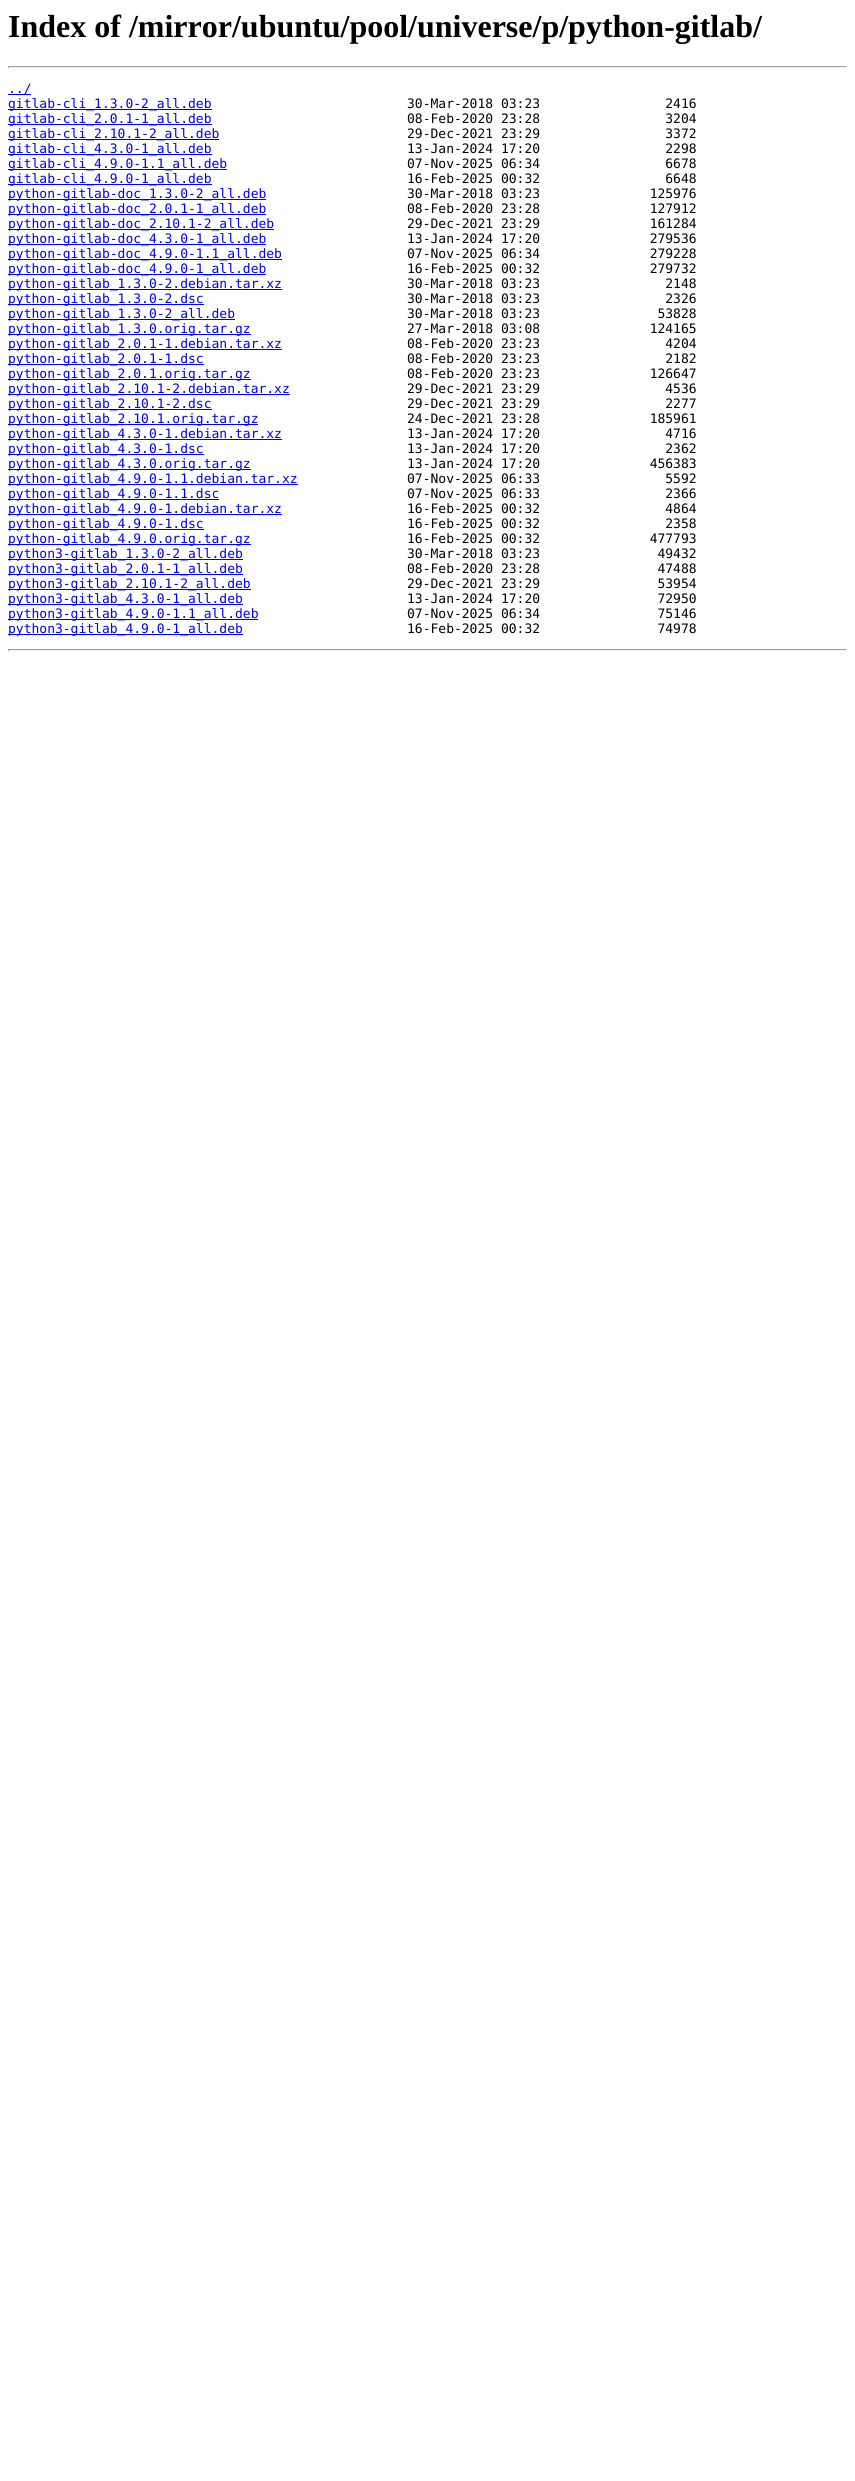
#include <cairo.h>
#include <math.h>
#include <stddef.h>

typedef struct { const char *family; double size; int italic, bold; unsigned color; } style_t;
static cairo_t *ctx;

static void ink(unsigned color) {
    cairo_set_source_rgb(ctx, (color >> 16) / 255.0, (color >> 8 & 255) / 255.0, (color & 255) / 255.0);
}

static void write(double x, double y, const char *s, const style_t *st) {
    cairo_select_font_face(ctx, st->family, st->italic ? CAIRO_FONT_SLANT_ITALIC : CAIRO_FONT_SLANT_NORMAL,
        st->bold ? CAIRO_FONT_WEIGHT_BOLD : CAIRO_FONT_WEIGHT_NORMAL);
    cairo_set_font_size(ctx, st->size);
    ink(st->color);
    cairo_move_to(ctx, x, y);
    cairo_show_text(ctx, s);
}

static void block(double x, double y, double w, double h, unsigned color) {
    ink(color);
    cairo_rectangle(ctx, x, y, w, h);
    cairo_fill(ctx);
}

static const style_t s1 = {"Liberation Serif", 32, 0, 1, 0x000000};
static const style_t s2 = {"DejaVu Sans Mono", 13, 0, 0, 0x0000ee};
static const style_t s3 = {"DejaVu Sans Mono", 13, 0, 0, 0x000000};

int main(void) {
    cairo_surface_t *surface = cairo_image_surface_create(CAIRO_FORMAT_RGB24, 855, 2481);
    ctx = cairo_create(surface);
    cairo_font_options_t *options = cairo_font_options_create();
    cairo_font_options_set_hint_metrics(options, CAIRO_HINT_METRICS_OFF);
    cairo_font_options_set_hint_style(options, CAIRO_HINT_STYLE_NONE);
    cairo_set_font_options(ctx, options);
    cairo_set_miter_limit(ctx, 4);
    ink(0xffffff);
    cairo_paint(ctx);
    write(8, 37, "Index of /mirror/ubuntu/pool/universe/p/python-gitlab/", &s1);
    block(8, 66, 839, 1, 0x9f9f9f);
    block(846, 66, 1, 2, 0xeeeeee);
    block(8, 67, 839, 1, 0xeeeeee);
    block(8, 66, 1, 2, 0x9f9f9f);
    block(8, 94, 23, 1, 0x0000ee);
    write(8, 93, "../", &s2);
    block(8, 109, 204, 1, 0x0000ee);
    write(8, 108, "gitlab-cli_1.3.0-2_all.deb", &s2);
    write(407, 108, "30-Mar-2018 03:23                2416", &s3);
    block(8, 124, 204, 1, 0x0000ee);
    write(8, 123, "gitlab-cli_2.0.1-1_all.deb", &s2);
    write(407, 123, "08-Feb-2020 23:28                3204", &s3);
    block(8, 139, 211, 1, 0x0000ee);
    write(8, 138, "gitlab-cli_2.10.1-2_all.deb", &s2);
    write(407, 138, "29-Dec-2021 23:29                3372", &s3);
    block(8, 154, 204, 1, 0x0000ee);
    write(8, 153, "gitlab-cli_4.3.0-1_all.deb", &s2);
    write(407, 153, "13-Jan-2024 17:20                2298", &s3);
    block(8, 169, 219, 1, 0x0000ee);
    write(8, 168, "gitlab-cli_4.9.0-1.1_all.deb", &s2);
    write(407, 168, "07-Nov-2025 06:34                6678", &s3);
    block(8, 184, 204, 1, 0x0000ee);
    write(8, 183, "gitlab-cli_4.9.0-1_all.deb", &s2);
    write(407, 183, "16-Feb-2025 00:32                6648", &s3);
    block(8, 199, 258, 1, 0x0000ee);
    write(8, 198, "python-gitlab-doc_1.3.0-2_all.deb", &s2);
    write(407, 198, "30-Mar-2018 03:23              125976", &s3);
    block(8, 214, 258, 1, 0x0000ee);
    write(8, 213, "python-gitlab-doc_2.0.1-1_all.deb", &s2);
    write(407, 213, "08-Feb-2020 23:28              127912", &s3);
    block(8, 229, 266, 1, 0x0000ee);
    write(8, 228, "python-gitlab-doc_2.10.1-2_all.deb", &s2);
    write(407, 228, "29-Dec-2021 23:29              161284", &s3);
    block(8, 244, 258, 1, 0x0000ee);
    write(8, 243, "python-gitlab-doc_4.3.0-1_all.deb", &s2);
    write(407, 243, "13-Jan-2024 17:20              279536", &s3);
    block(8, 259, 274, 1, 0x0000ee);
    write(8, 258, "python-gitlab-doc_4.9.0-1.1_all.deb", &s2);
    write(407, 258, "07-Nov-2025 06:34              279228", &s3);
    block(8, 274, 258, 1, 0x0000ee);
    write(8, 273, "python-gitlab-doc_4.9.0-1_all.deb", &s2);
    write(407, 273, "16-Feb-2025 00:32              279732", &s3);
    block(8, 289, 274, 1, 0x0000ee);
    write(8, 288, "python-gitlab_1.3.0-2.debian.tar.xz", &s2);
    write(407, 288, "30-Mar-2018 03:23                2148", &s3);
    block(8, 304, 196, 1, 0x0000ee);
    write(8, 303, "python-gitlab_1.3.0-2.dsc", &s2);
    write(407, 303, "30-Mar-2018 03:23                2326", &s3);
    block(8, 319, 227, 1, 0x0000ee);
    write(8, 318, "python-gitlab_1.3.0-2_all.deb", &s2);
    write(407, 318, "30-Mar-2018 03:23               53828", &s3);
    block(8, 334, 243, 1, 0x0000ee);
    write(8, 333, "python-gitlab_1.3.0.orig.tar.gz", &s2);
    write(407, 333, "27-Mar-2018 03:08              124165", &s3);
    block(8, 349, 274, 1, 0x0000ee);
    write(8, 348, "python-gitlab_2.0.1-1.debian.tar.xz", &s2);
    write(407, 348, "08-Feb-2020 23:23                4204", &s3);
    block(8, 364, 196, 1, 0x0000ee);
    write(8, 363, "python-gitlab_2.0.1-1.dsc", &s2);
    write(407, 363, "08-Feb-2020 23:23                2182", &s3);
    block(8, 379, 243, 1, 0x0000ee);
    write(8, 378, "python-gitlab_2.0.1.orig.tar.gz", &s2);
    write(407, 378, "08-Feb-2020 23:23              126647", &s3);
    block(8, 394, 282, 1, 0x0000ee);
    write(8, 393, "python-gitlab_2.10.1-2.debian.tar.xz", &s2);
    write(407, 393, "29-Dec-2021 23:29                4536", &s3);
    block(8, 409, 204, 1, 0x0000ee);
    write(8, 408, "python-gitlab_2.10.1-2.dsc", &s2);
    write(407, 408, "29-Dec-2021 23:29                2277", &s3);
    block(8, 424, 250, 1, 0x0000ee);
    write(8, 423, "python-gitlab_2.10.1.orig.tar.gz", &s2);
    write(407, 423, "24-Dec-2021 23:28              185961", &s3);
    block(8, 439, 274, 1, 0x0000ee);
    write(8, 438, "python-gitlab_4.3.0-1.debian.tar.xz", &s2);
    write(407, 438, "13-Jan-2024 17:20                4716", &s3);
    block(8, 454, 196, 1, 0x0000ee);
    write(8, 453, "python-gitlab_4.3.0-1.dsc", &s2);
    write(407, 453, "13-Jan-2024 17:20                2362", &s3);
    block(8, 469, 243, 1, 0x0000ee);
    write(8, 468, "python-gitlab_4.3.0.orig.tar.gz", &s2);
    write(407, 468, "13-Jan-2024 17:20              456383", &s3);
    block(8, 484, 290, 1, 0x0000ee);
    write(8, 483, "python-gitlab_4.9.0-1.1.debian.tar.xz", &s2);
    write(407, 483, "07-Nov-2025 06:33                5592", &s3);
    block(8, 499, 211, 1, 0x0000ee);
    write(8, 498, "python-gitlab_4.9.0-1.1.dsc", &s2);
    write(407, 498, "07-Nov-2025 06:33                2366", &s3);
    block(8, 514, 274, 1, 0x0000ee);
    write(8, 513, "python-gitlab_4.9.0-1.debian.tar.xz", &s2);
    write(407, 513, "16-Feb-2025 00:32                4864", &s3);
    block(8, 529, 196, 1, 0x0000ee);
    write(8, 528, "python-gitlab_4.9.0-1.dsc", &s2);
    write(407, 528, "16-Feb-2025 00:32                2358", &s3);
    block(8, 544, 243, 1, 0x0000ee);
    write(8, 543, "python-gitlab_4.9.0.orig.tar.gz", &s2);
    write(407, 543, "16-Feb-2025 00:32              477793", &s3);
    block(8, 559, 235, 1, 0x0000ee);
    write(8, 558, "python3-gitlab_1.3.0-2_all.deb", &s2);
    write(407, 558, "30-Mar-2018 03:23               49432", &s3);
    block(8, 574, 235, 1, 0x0000ee);
    write(8, 573, "python3-gitlab_2.0.1-1_all.deb", &s2);
    write(407, 573, "08-Feb-2020 23:28               47488", &s3);
    block(8, 589, 243, 1, 0x0000ee);
    write(8, 588, "python3-gitlab_2.10.1-2_all.deb", &s2);
    write(407, 588, "29-Dec-2021 23:29               53954", &s3);
    block(8, 604, 235, 1, 0x0000ee);
    write(8, 603, "python3-gitlab_4.3.0-1_all.deb", &s2);
    write(407, 603, "13-Jan-2024 17:20               72950", &s3);
    block(8, 619, 250, 1, 0x0000ee);
    write(8, 618, "python3-gitlab_4.9.0-1.1_all.deb", &s2);
    write(407, 618, "07-Nov-2025 06:34               75146", &s3);
    block(8, 634, 235, 1, 0x0000ee);
    write(8, 633, "python3-gitlab_4.9.0-1_all.deb", &s2);
    write(407, 633, "16-Feb-2025 00:32               74978", &s3);
    block(8, 649, 839, 1, 0x9f9f9f);
    block(846, 649, 1, 2, 0xeeeeee);
    block(8, 650, 839, 1, 0xeeeeee);
    block(8, 649, 1, 2, 0x9f9f9f);
    cairo_surface_write_to_png(surface, "screenshot.png");
    cairo_font_options_destroy(options);
    cairo_destroy(ctx);
    cairo_surface_destroy(surface);
    return 0;
}
